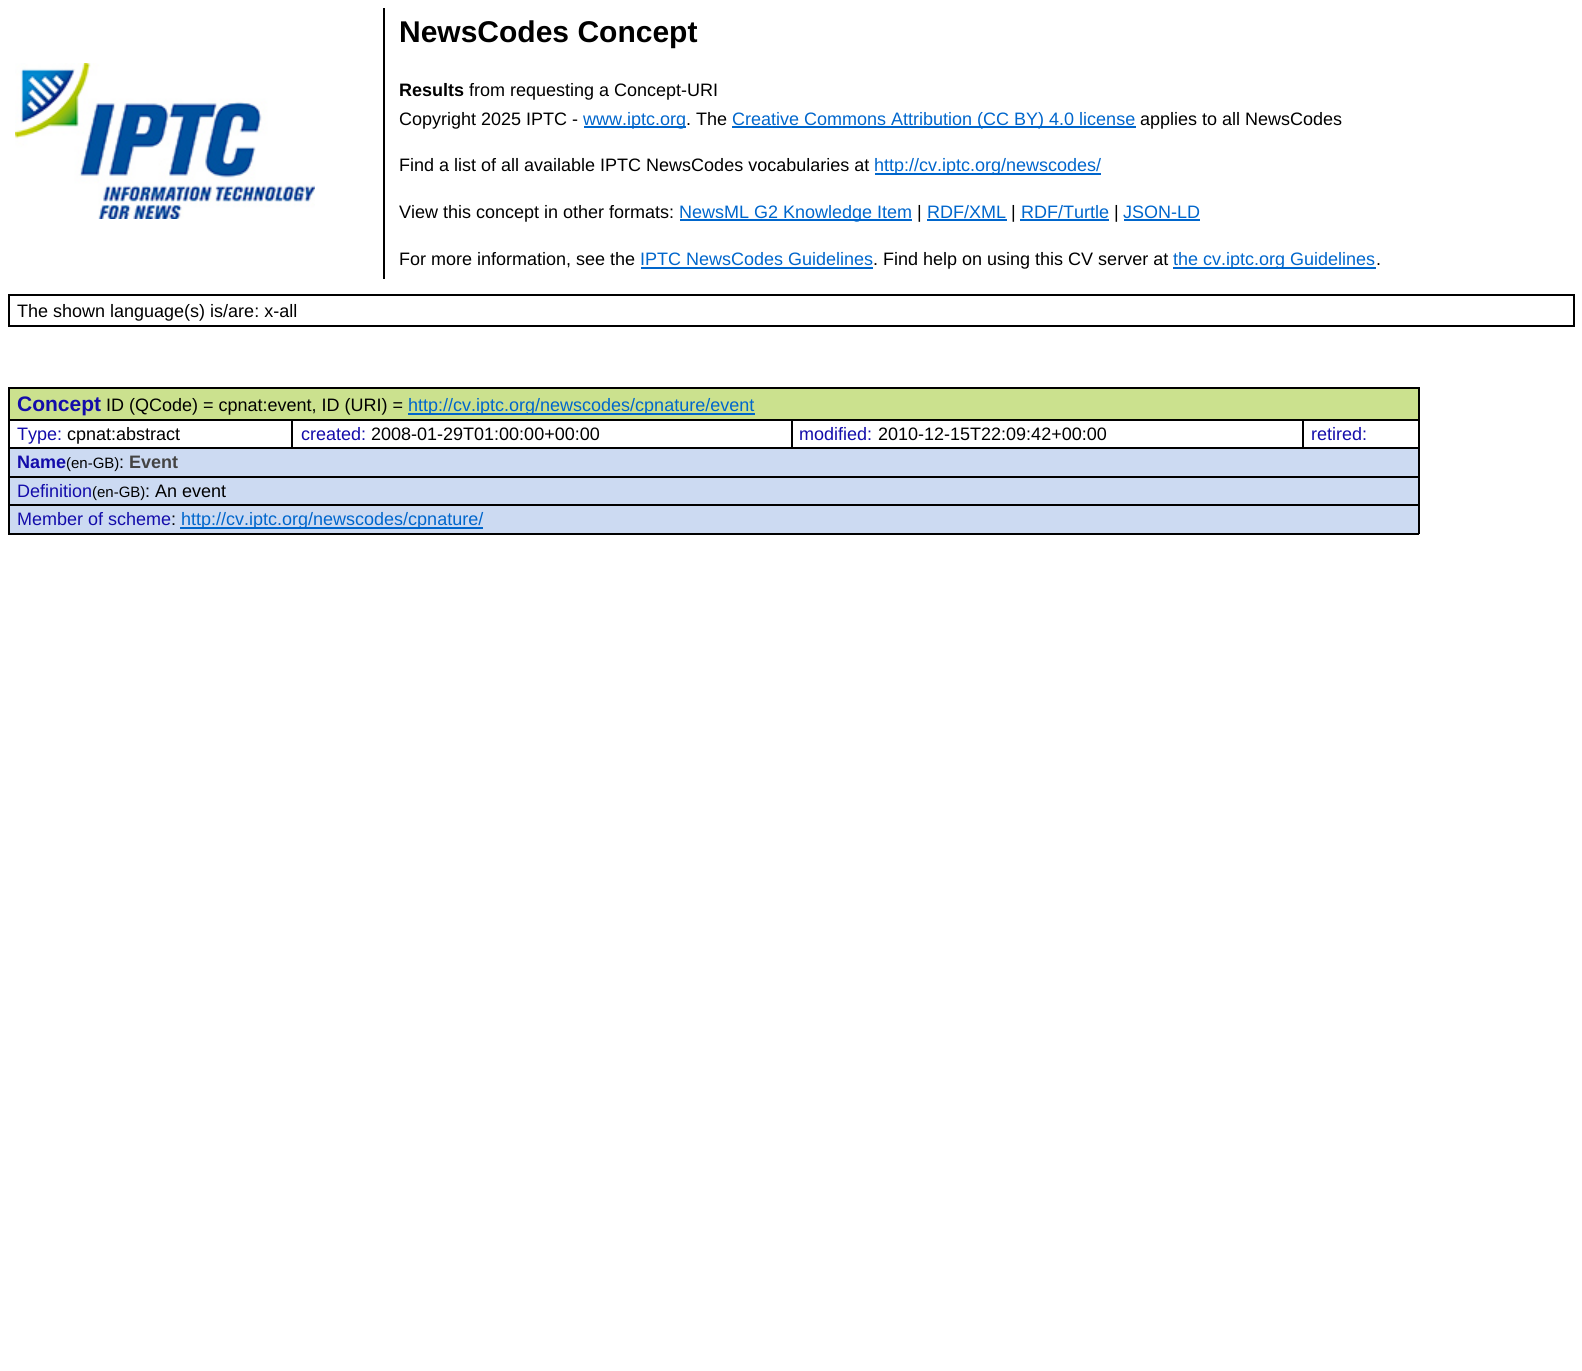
#include <cairo.h>
#include <math.h>
#include <stddef.h>

typedef struct { const char *family; double size; int italic, bold; unsigned color; } style_t;
static cairo_t *ctx;

static void ink(unsigned color) {
    cairo_set_source_rgb(ctx, (color >> 16) / 255.0, (color >> 8 & 255) / 255.0, (color & 255) / 255.0);
}

static void write(double x, double y, const char *s, const style_t *st) {
    cairo_select_font_face(ctx, st->family, st->italic ? CAIRO_FONT_SLANT_ITALIC : CAIRO_FONT_SLANT_NORMAL,
        st->bold ? CAIRO_FONT_WEIGHT_BOLD : CAIRO_FONT_WEIGHT_NORMAL);
    cairo_set_font_size(ctx, st->size);
    ink(st->color);
    cairo_move_to(ctx, x, y);
    cairo_show_text(ctx, s);
}

static void block(double x, double y, double w, double h, unsigned color) {
    ink(color);
    cairo_rectangle(ctx, x, y, w, h);
    cairo_fill(ctx);
}

static void paste(const char *path, double x, double y, double w, double h) {
    cairo_surface_t *image = cairo_image_surface_create_from_png(path);
    cairo_save(ctx);
    cairo_set_source_surface(ctx, image, x, y);
    cairo_rectangle(ctx, x, y, w, h);
    cairo_fill(ctx);
    cairo_restore(ctx);
    cairo_surface_destroy(image);
}

static const style_t s1 = {"Liberation Sans", 30, 0, 1, 0x000000};
static const style_t s2 = {"Liberation Sans", 18, 0, 1, 0x000000};
static const style_t s3 = {"Liberation Sans", 18, 0, 0, 0x000000};
static const style_t s4 = {"Liberation Sans", 18, 0, 0, 0x0066cc};
static const style_t s5 = {"Liberation Sans", 21, 0, 1, 0x130caa};
static const style_t s6 = {"Liberation Sans", 18, 0, 0, 0x130caa};
static const style_t s7 = {"Liberation Sans", 18, 0, 1, 0x130caa};
static const style_t s8 = {"Liberation Sans", 15, 0, 0, 0x000000};
static const style_t s9 = {"Liberation Sans", 18, 0, 1, 0x444444};

int main(void) {
    cairo_surface_t *surface = cairo_image_surface_create(CAIRO_FORMAT_RGB24, 1582, 1371);
    ctx = cairo_create(surface);
    cairo_font_options_t *options = cairo_font_options_create();
    cairo_font_options_set_hint_metrics(options, CAIRO_HINT_METRICS_OFF);
    cairo_font_options_set_hint_style(options, CAIRO_HINT_STYLE_NONE);
    cairo_set_font_options(ctx, options);
    cairo_set_miter_limit(ctx, 4);
    ink(0xffffff);
    cairo_paint(ctx);
    block(383, 8, 2, 271, 0x000000);
    paste("pic1.png", 15, 63, 300, 156);
    write(399, 42, "NewsCodes Concept", &s1);
    write(399, 96, "Results", &s2);
    write(469, 96, "from requesting a Concept-URI", &s3);
    write(399, 125, "Copyright 2025 IPTC -", &s3);
    block(584, 126, 102, 2, 0x0066cc);
    write(583, 125, "www.iptc.org", &s4);
    write(686, 125, ". The", &s3);
    block(732, 126, 404, 2, 0x0066cc);
    write(732, 125, "Creative Commons Attribution (CC BY) 4.0 license", &s4);
    write(1140, 125, "applies to all NewsCodes", &s3);
    write(399, 171, "Find a list of all available IPTC NewsCodes vocabularies at", &s3);
    block(875, 173, 226, 2, 0x0066cc);
    write(874, 171, "http://cv.iptc.org/newscodes/", &s4);
    write(399, 218, "View this concept in other formats:", &s3);
    block(680, 219, 232, 2, 0x0066cc);
    write(679, 218, "NewsML G2 Knowledge Item", &s4);
    write(917, 218, "|", &s3);
    write(927, 218, "RDF/XML", &s4);
    block(927, 219, 80, 2, 0x0066cc);
    write(1011, 218, "|", &s3);
    write(1021, 218, "RDF/Turtle", &s4);
    block(1020, 219, 89, 2, 0x0066cc);
    write(1114, 218, "|", &s3);
    write(1123, 218, "JSON-LD", &s4);
    block(1124, 219, 76, 2, 0x0066cc);
    write(399, 265, "For more information, see the", &s3);
    write(640, 265, "IPTC NewsCodes Guidelines", &s4);
    block(641, 267, 232, 2, 0x0066cc);
    write(873, 265, ". Find help on using this CV server at", &s3);
    block(1173, 267, 203, 2, 0x0066cc);
    write(1173, 265, "the cv.iptc.org Guidelines", &s4);
    write(1376, 265, ".", &s3);
    cairo_rectangle(ctx, 9, 295, 1565, 31);
    cairo_stroke(ctx);
    write(17, 317, "The shown language(s) is/are: x-all", &s3);
    block(8, 387, 1411, 2, 0x000000);
    block(1418, 387, 2, 147, 0x000000);
    block(8, 533, 1411, 2, 0x000000);
    block(8, 387, 2, 147, 0x000000);
    block(10, 389, 1408, 30, 0xcbe18e);
    block(1302, 447, 117, 2, 0x000000);
    block(1302, 419, 2, 30, 0x000000);
    block(791, 447, 513, 2, 0x000000);
    block(791, 419, 2, 30, 0x000000);
    block(291, 447, 501, 2, 0x000000);
    block(291, 419, 2, 30, 0x000000);
    block(8, 419, 1411, 2, 0x000000);
    write(17, 411, "Concept", &s5);
    write(106, 411, "ID (QCode) = cpnat:event, ID (URI) =", &s3);
    block(408, 413, 347, 2, 0x0066cc);
    write(408, 411, "http://cv.iptc.org/newscodes/cpnature/event", &s4);
    block(8, 447, 285, 2, 0x000000);
    write(17, 440, "Type:", &s6);
    write(67, 440, "cpnat:abstract", &s3);
    write(301, 440, "created:", &s6);
    write(371, 440, "2008-01-29T01:00:00+00:00", &s3);
    write(799, 440, "modified:", &s6);
    write(878, 440, "2010-12-15T22:09:42+00:00", &s3);
    write(1311, 440, "retired:", &s6);
    block(10, 449, 1408, 27, 0xccdaf2);
    block(8, 476, 1411, 2, 0x000000);
    write(17, 468, "Name", &s7);
    write(66, 468, "(en-GB)", &s8);
    write(119, 468, ":", &s3);
    write(129, 468, "Event", &s9);
    block(10, 478, 1408, 26, 0xccdaf2);
    block(8, 504, 1411, 2, 0x000000);
    write(17, 497, "Definition", &s6);
    write(92, 497, "(en-GB)", &s8);
    write(145, 497, ": An event", &s3);
    block(10, 506, 1408, 27, 0xccdaf2);
    write(17, 525, "Member of scheme", &s6);
    write(171, 525, ":", &s3);
    block(180, 527, 303, 2, 0x0066cc);
    write(181, 525, "http://cv.iptc.org/newscodes/cpnature/", &s4);
    cairo_surface_write_to_png(surface, "screenshot.png");
    cairo_font_options_destroy(options);
    cairo_destroy(ctx);
    cairo_surface_destroy(surface);
    return 0;
}
